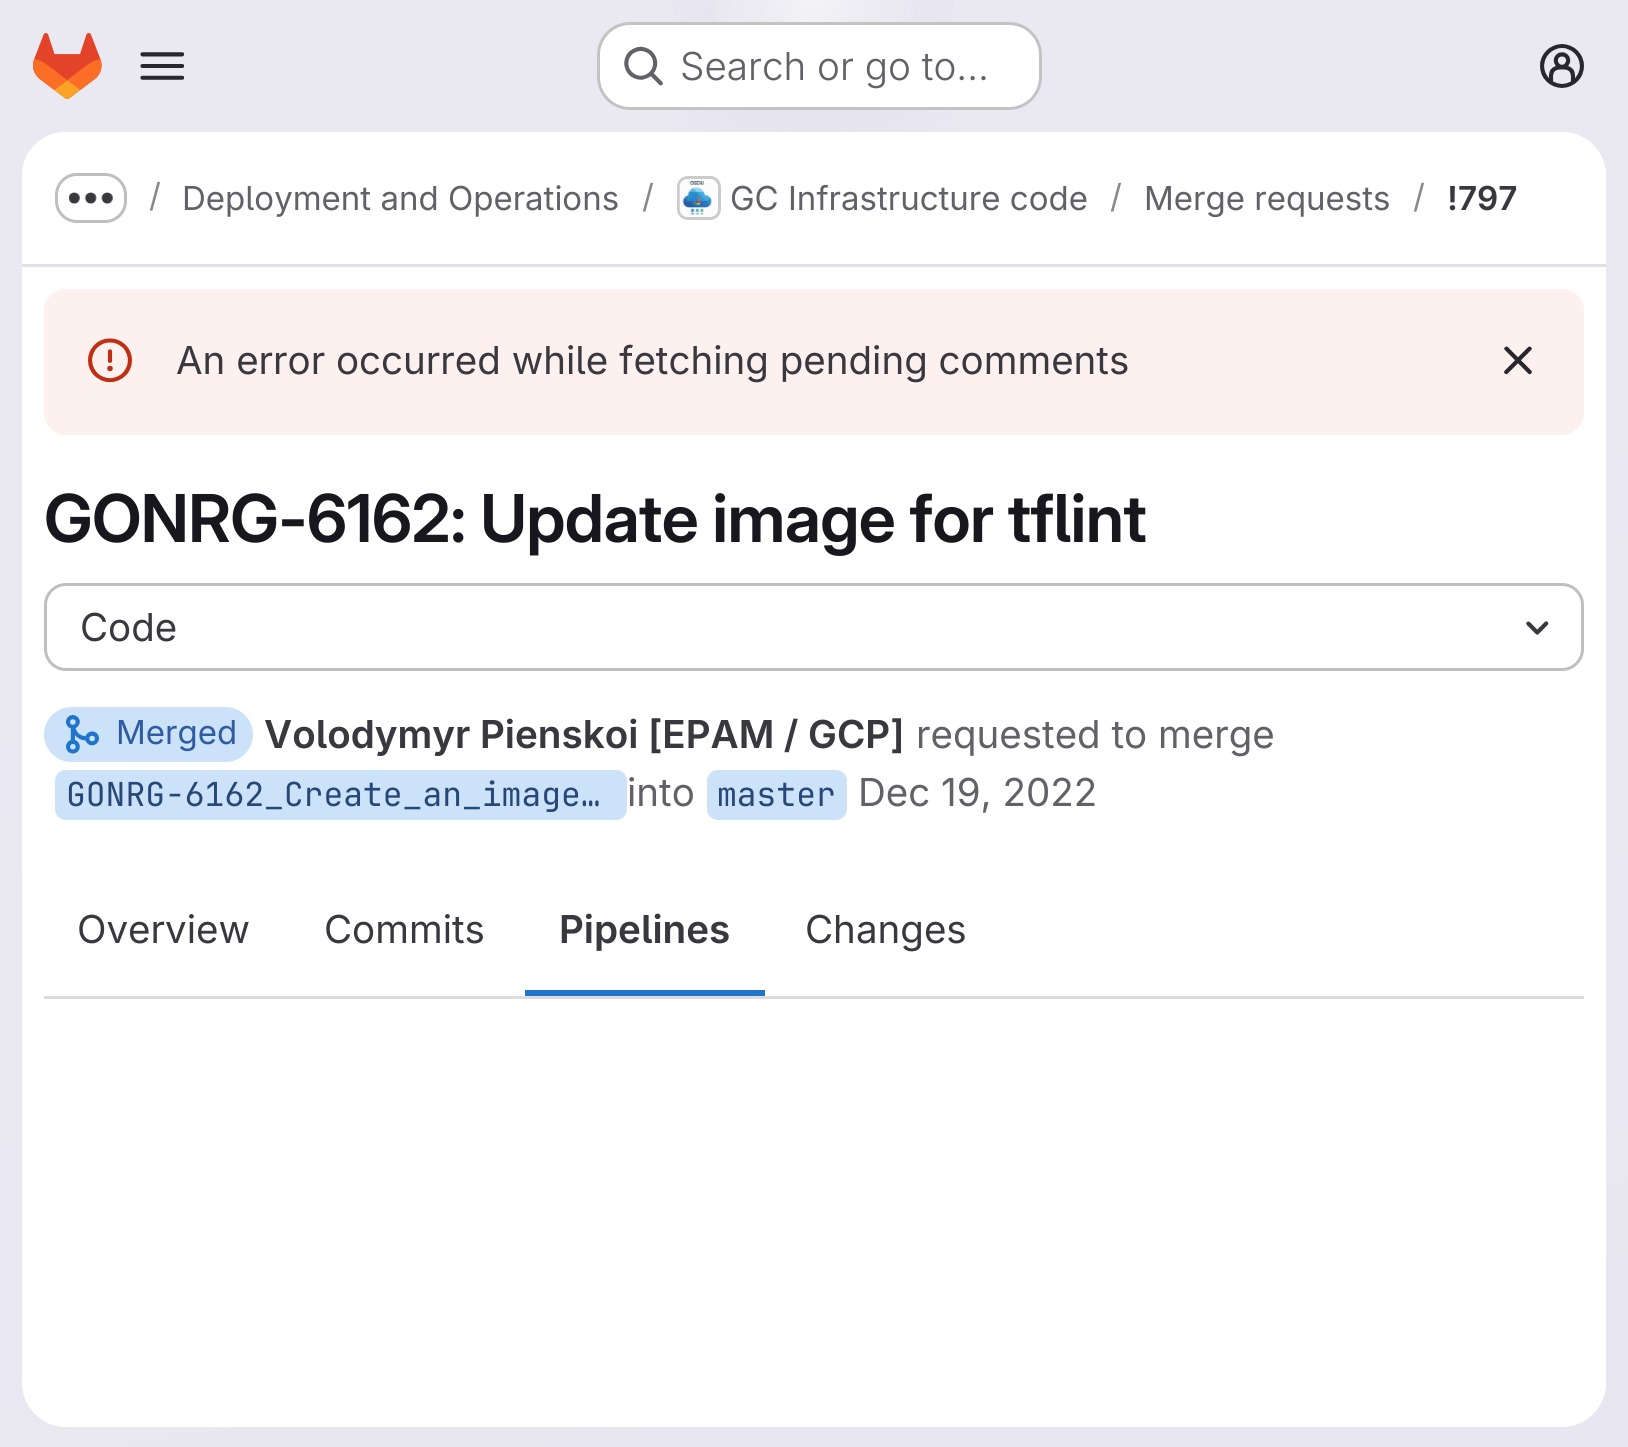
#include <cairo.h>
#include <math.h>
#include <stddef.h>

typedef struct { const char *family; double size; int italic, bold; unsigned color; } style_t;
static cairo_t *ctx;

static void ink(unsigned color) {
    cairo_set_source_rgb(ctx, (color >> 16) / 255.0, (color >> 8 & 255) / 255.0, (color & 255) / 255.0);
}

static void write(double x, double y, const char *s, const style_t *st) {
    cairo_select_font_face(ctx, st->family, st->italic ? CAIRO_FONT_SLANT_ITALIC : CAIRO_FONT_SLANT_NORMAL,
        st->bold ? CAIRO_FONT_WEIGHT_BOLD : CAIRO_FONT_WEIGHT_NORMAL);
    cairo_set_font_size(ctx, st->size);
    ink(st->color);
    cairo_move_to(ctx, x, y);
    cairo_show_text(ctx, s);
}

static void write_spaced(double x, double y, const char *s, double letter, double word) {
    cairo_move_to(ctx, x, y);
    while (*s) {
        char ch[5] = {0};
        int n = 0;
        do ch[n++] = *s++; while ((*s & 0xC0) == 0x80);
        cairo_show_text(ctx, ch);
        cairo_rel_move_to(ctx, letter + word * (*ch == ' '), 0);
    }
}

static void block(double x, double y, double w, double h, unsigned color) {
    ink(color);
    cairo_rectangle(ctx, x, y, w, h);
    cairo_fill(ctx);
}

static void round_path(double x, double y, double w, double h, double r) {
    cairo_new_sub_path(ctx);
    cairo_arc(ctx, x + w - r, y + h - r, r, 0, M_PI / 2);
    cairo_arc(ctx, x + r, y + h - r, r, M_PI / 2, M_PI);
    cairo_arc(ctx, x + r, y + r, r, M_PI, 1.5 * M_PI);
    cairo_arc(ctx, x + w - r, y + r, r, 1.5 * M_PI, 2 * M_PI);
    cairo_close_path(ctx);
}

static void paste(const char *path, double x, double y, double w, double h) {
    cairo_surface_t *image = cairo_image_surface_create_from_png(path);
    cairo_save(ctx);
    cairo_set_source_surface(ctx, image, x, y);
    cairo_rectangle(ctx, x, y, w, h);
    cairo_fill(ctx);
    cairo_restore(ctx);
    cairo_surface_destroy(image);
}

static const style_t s1 = {"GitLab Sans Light", 38.5, 0, 0, 0x626168};
static const style_t s2 = {"GitLab Sans", 33, 0, 0, 0x89888d};
static const style_t s3 = {"GitLab Sans", 33, 0, 0, 0x626168};
static const style_t s4 = {"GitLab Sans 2 SemiBold", 33, 0, 0, 0x3a383f};
static const style_t s5 = {"GitLab Sans", 38.5, 0, 0, 0x3a383f};
static const style_t s6 = {"GitLab Sans", 33, 0, 0, 0x2f5ca0};
static const style_t s7 = {"GitLab Sans 2 SemiBold", 38.5, 0, 0, 0x3a383f};
static const style_t s8 = {"GitLab Sans", 38.5, 0, 0, 0x626168};
static const style_t s9 = {"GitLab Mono", 33, 0, 0, 0x284779};

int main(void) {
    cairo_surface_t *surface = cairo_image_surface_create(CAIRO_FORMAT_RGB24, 1628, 1447);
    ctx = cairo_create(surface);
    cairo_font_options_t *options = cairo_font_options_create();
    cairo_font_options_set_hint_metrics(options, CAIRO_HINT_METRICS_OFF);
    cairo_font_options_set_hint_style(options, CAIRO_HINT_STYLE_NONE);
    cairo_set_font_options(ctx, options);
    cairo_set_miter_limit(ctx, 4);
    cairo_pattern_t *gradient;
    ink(0xffffff);
    cairo_paint(ctx);
    gradient = cairo_pattern_create_linear(962, 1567, 666, -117);
    cairo_pattern_add_color_stop_rgba(gradient, 0, 0.91, 0.902, 0.941, 1);
    cairo_pattern_add_color_stop_rgba(gradient, 0.7, 0.918, 0.914, 0.949, 1);
    cairo_set_source(ctx, gradient);
    cairo_pattern_destroy(gradient);
    cairo_rectangle(ctx, 0, 0, 1628, 1447);
    cairo_fill(ctx);
    gradient = cairo_pattern_create_radial(0, 0, 0, 0, 0, 1);
    cairo_pattern_set_matrix(gradient, &(cairo_matrix_t){1.0 / 814, 0, 0, 1.0 / 1449, -1.0 * 814 / 814, -1.0 * 0 / 1449});
    cairo_pattern_add_color_stop_rgba(gradient, 0, 0.894, 0.886, 0.929, 1);
    cairo_pattern_add_color_stop_rgba(gradient, 0.24, 0.894, 0.886, 0.929, 0);
    cairo_set_source(ctx, gradient);
    cairo_pattern_destroy(gradient);
    cairo_rectangle(ctx, 673, 0, 281, 132);
    cairo_fill(ctx);
    gradient = cairo_pattern_create_radial(0, 0, 0, 0, 0, 1);
    cairo_pattern_set_matrix(gradient, &(cairo_matrix_t){1.0 / 814, 0, 0, 1.0 / 1449, -1.0 * 814 / 814, -1.0 * 0 / 1449});
    cairo_pattern_add_color_stop_rgba(gradient, 0, 0.894, 0.886, 0.925, 1);
    cairo_pattern_add_color_stop_rgba(gradient, 0.17, 0.894, 0.886, 0.925, 0);
    cairo_set_source(ctx, gradient);
    cairo_pattern_destroy(gradient);
    cairo_rectangle(ctx, 757, 2, 114, 100);
    cairo_fill(ctx);
    gradient = cairo_pattern_create_radial(814, 0, 0, 814, 0, 1662);
    cairo_pattern_add_color_stop_rgba(gradient, 0, 1, 1, 1, 0.6);
    cairo_pattern_add_color_stop_rgba(gradient, 0.07, 1, 1, 1, 0);
    cairo_set_source(ctx, gradient);
    cairo_pattern_destroy(gradient);
    cairo_rectangle(ctx, 715, 0, 198, 22);
    cairo_fill(ctx);
    paste("pic1.png", 33, 33, 69, 66);
    paste("pic2.png", 140, 52, 45, 28);
    ink(0xffffff);
    round_path(597, 22, 445, 88, 33);
    cairo_fill(ctx);
    round_path(598.5, 23.5, 442, 85, 31.5);
    cairo_set_source_rgba(ctx, 0.02, 0.02, 0.024, 0.24);
    cairo_set_line_width(ctx, 3);
    cairo_stroke(ctx);
    paste("pic3.png", 624, 46, 39, 40);
    write(680, 80, "Search or go to…", &s1);
    paste("pic4.png", 1540, 44, 44, 44);
    ink(0xffffff);
    round_path(22, 132, 1584, 1295, 44);
    cairo_fill(ctx);
    cairo_new_path(ctx);
    cairo_move_to(ctx, 66, 132);
    cairo_line_to(ctx, 1562, 132);
    cairo_curve_to(ctx, 1586.5, 132, 1606, 151.5, 1606, 176);
    cairo_line_to(ctx, 1606, 267);
    cairo_line_to(ctx, 22, 267);
    cairo_line_to(ctx, 22, 176);
    cairo_curve_to(ctx, 22, 151.5, 41.5, 132, 66, 132);
    cairo_close_path(ctx);
    cairo_fill(ctx);
    block(22, 264, 1584, 3, 0xe1dfec);
    round_path(56.5, 174.5, 69, 47, 20.5);
    ink(0xbfbfc3);
    cairo_stroke(ctx);
    paste("pic5.png", 69, 192, 44, 12);
    write(149, 207, "/", &s2);
    write(182, 210, "Deployment and Operations", &s3);
    write(642, 208, "/", &s2);
    round_path(678.5, 177.5, 41, 41, 9.5);
    ink(0xdcdcde);
    cairo_stroke(ctx);
    paste("pic6.png", 679, 179, 36, 38);
    round_path(678.5, 177.5, 41, 41, 9.5);
    cairo_set_source_rgba(ctx, 0.02, 0.02, 0.024, 0.08);
    cairo_stroke(ctx);
    write(730, 210, "GC Infrastructure code", &s3);
    write(1110, 208, "/", &s2);
    write(1144, 210, "Merge requests", &s3);
    write(1413, 208, "/", &s2);
    write(1447, 210, "!797", &s4);
    ink(0xfcf1ef);
    round_path(44, 289, 1540, 146, 22);
    cairo_fill(ctx);
    paste("pic7.png", 88, 338, 44, 45);
    write(176, 374, "An error occurred while fetching pending comments", &s5);
    paste("pic8.png", 1504, 346, 28, 29);
    cairo_select_font_face(ctx, "GitLab Sans SemiBold", CAIRO_FONT_SLANT_NORMAL, CAIRO_FONT_WEIGHT_NORMAL);
    cairo_set_font_size(ctx, 66);
    ink(0x18171d);
    write_spaced(44, 542, "GONRG-6162: Update image for tflint", -0.65, 0);
    round_path(45.5, 584.5, 1537, 85, 20.5);
    ink(0xbfbfc3);
    cairo_stroke(ctx);
    write(80, 641, "Code", &s5);
    paste("pic9.png", 1526, 621, 23, 14);
    block(44, 996, 1540, 3, 0xdcdcde);
    ink(0xcbe2f9);
    round_path(44, 707, 209, 55, 27.5);
    cairo_fill(ctx);
    paste("pic10.png", 66, 715, 33, 39);
    write(116, 744, "Merged", &s6);
    write(264, 748, "Volodymyr Pienskoi [EPAM / GCP]", &s7);
    write(916, 748, "requested to merge", &s8);
    ink(0xcbe2f9);
    round_path(55, 770, 572, 50, 11);
    cairo_fill(ctx);
    write(66, 806, "GONRG-6162_Create_an_image…", &s9);
    write(627, 806, "into", &s8);
    ink(0xcbe2f9);
    round_path(707, 770, 140, 50, 11);
    cairo_fill(ctx);
    write(717, 806, "master", &s9);
    write(858, 806, "Dec 19, 2022", &s8);
    write(77, 943, "Overview", &s5);
    write(324, 943, "Commits", &s5);
    block(525, 990, 240, 6, 0x1f75cb);
    write(559, 943, "Pipelines", &s7);
    write(805, 943, "Changes", &s5);
    cairo_surface_write_to_png(surface, "screenshot.png");
    cairo_font_options_destroy(options);
    cairo_destroy(ctx);
    cairo_surface_destroy(surface);
    return 0;
}
